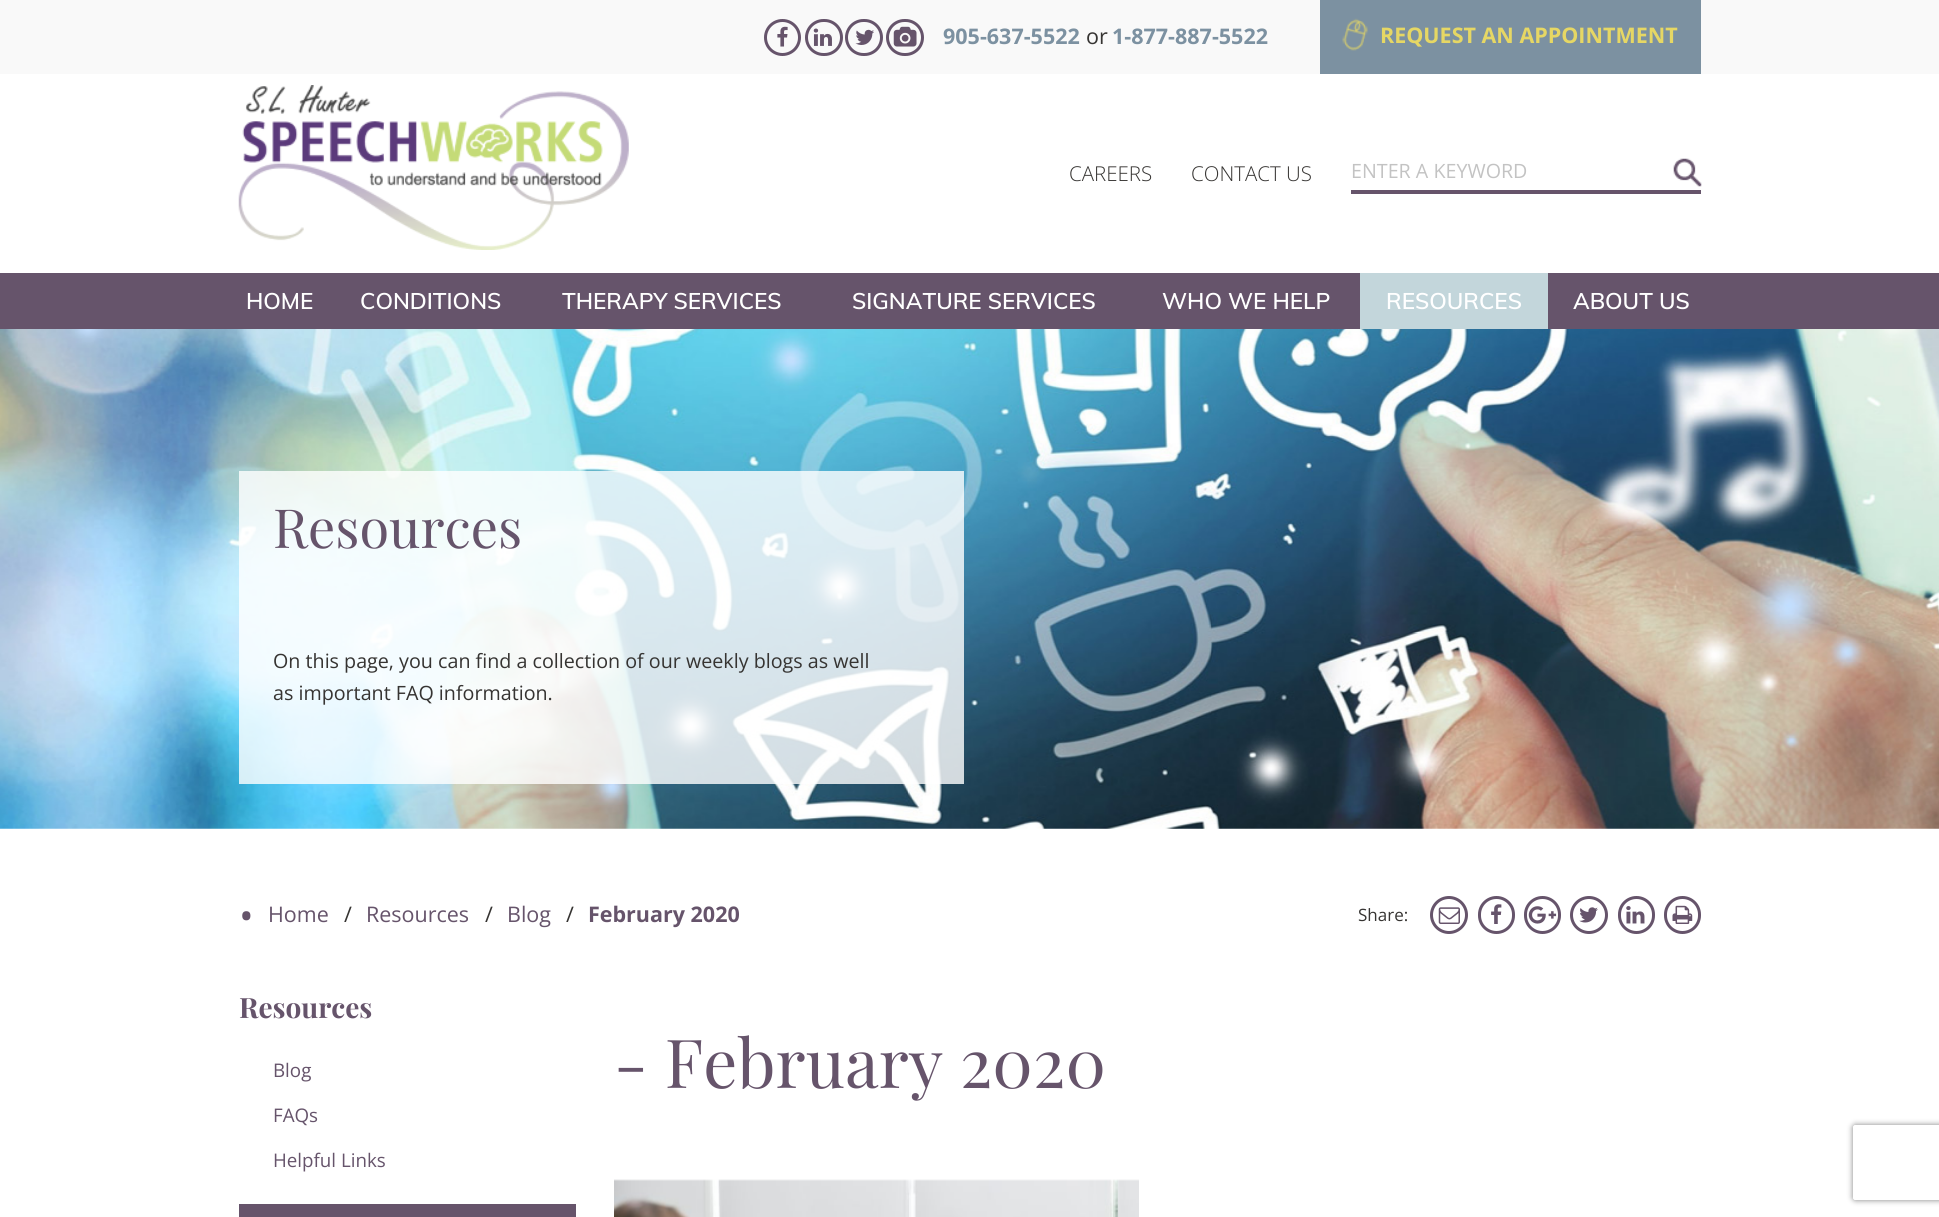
#include <cairo.h>
#include <math.h>
#include <stddef.h>

typedef struct { const char *family; double size; int italic, bold; unsigned color; } style_t;
static cairo_t *ctx;

static void ink(unsigned color) {
    cairo_set_source_rgb(ctx, (color >> 16) / 255.0, (color >> 8 & 255) / 255.0, (color & 255) / 255.0);
}

static void write(double x, double y, const char *s, const style_t *st) {
    cairo_select_font_face(ctx, st->family, st->italic ? CAIRO_FONT_SLANT_ITALIC : CAIRO_FONT_SLANT_NORMAL,
        st->bold ? CAIRO_FONT_WEIGHT_BOLD : CAIRO_FONT_WEIGHT_NORMAL);
    cairo_set_font_size(ctx, st->size);
    ink(st->color);
    cairo_move_to(ctx, x, y);
    cairo_show_text(ctx, s);
}

static void write_spaced(double x, double y, const char *s, double letter, double word) {
    cairo_move_to(ctx, x, y);
    while (*s) {
        char ch[5] = {0};
        int n = 0;
        do ch[n++] = *s++; while ((*s & 0xC0) == 0x80);
        cairo_show_text(ctx, ch);
        cairo_rel_move_to(ctx, letter + word * (*ch == ' '), 0);
    }
}

static void block(double x, double y, double w, double h, unsigned color) {
    ink(color);
    cairo_rectangle(ctx, x, y, w, h);
    cairo_fill(ctx);
}

static void round_path(double x, double y, double w, double h, double r) {
    cairo_new_sub_path(ctx);
    cairo_arc(ctx, x + w - r, y + h - r, r, 0, M_PI / 2);
    cairo_arc(ctx, x + r, y + h - r, r, M_PI / 2, M_PI);
    cairo_arc(ctx, x + r, y + r, r, M_PI, 1.5 * M_PI);
    cairo_arc(ctx, x + w - r, y + r, r, 1.5 * M_PI, 2 * M_PI);
    cairo_close_path(ctx);
}

static void blur_box(double x, double y, double w, double h, double r, double blur, double alpha) {
    cairo_push_group_with_content(ctx, CAIRO_CONTENT_ALPHA);
    cairo_set_operator(ctx, CAIRO_OPERATOR_SOURCE);
    for (int i = 15; i >= -15 && fmin(w, h) + blur * i / 3 > 0; i -= 2) {
        double e = blur * i / 6;
        cairo_set_source_rgba(ctx, 0, 0, 0, alpha * erfc((i - 1) / 8.5) / 2);
        round_path(x - e, y - e, w + 2 * e, h + 2 * e, fmax(0, fmin(r + e + blur * .6, fmin(w, h) / 2 + e)));
        cairo_fill(ctx);
    }
    cairo_pattern_t *soft = cairo_pop_group(ctx);
    cairo_mask(ctx, soft);
    cairo_pattern_destroy(soft);
}

static void paste(const char *path, double x, double y, double w, double h) {
    cairo_surface_t *image = cairo_image_surface_create_from_png(path);
    cairo_save(ctx);
    cairo_set_source_surface(ctx, image, x, y);
    cairo_rectangle(ctx, x, y, w, h);
    cairo_fill(ctx);
    cairo_restore(ctx);
    cairo_surface_destroy(image);
}

static const style_t s1 = {"Open Sans", 21.5, 0, 1, 0x7c91a1};
static const style_t s2 = {"Open Sans", 21.5, 0, 0, 0x363432};
static const style_t s3 = {"Open Sans", 21.5, 0, 1, 0xe6d764};
static const style_t s4 = {"Open Sans Light", 20.5, 0, 0, 0x363432};
static const style_t s5 = {"Open Sans", 19.7, 0, 0, 0xc3c3c3};
static const style_t s6 = {"Muli SemiBold", 22.5, 0, 0, 0xffffff};
static const style_t s7 = {"Playfair Display", 54, 0, 0, 0x66546b};
static const style_t s8 = {"Open Sans", 19.7, 0, 0, 0x363432};
static const style_t s9 = {"Open Sans", 39, 0, 0, 0x66546b};
static const style_t s10 = {"Open Sans", 21.5, 0, 0, 0x66546b};
static const style_t s11 = {"Open Sans", 21.5, 0, 1, 0x66546b};
static const style_t s12 = {"Open Sans", 17, 0, 0, 0x363432};
static const style_t s13 = {"Playfair Display", 28, 0, 1, 0x66546b};
static const style_t s14 = {"Open Sans", 18.75, 0, 0, 0x66546b};

int main(void) {
    cairo_surface_t *surface = cairo_image_surface_create(CAIRO_FORMAT_RGB24, 1939, 1217);
    ctx = cairo_create(surface);
    cairo_font_options_t *options = cairo_font_options_create();
    cairo_font_options_set_hint_metrics(options, CAIRO_HINT_METRICS_OFF);
    cairo_font_options_set_hint_style(options, CAIRO_HINT_STYLE_NONE);
    cairo_set_font_options(ctx, options);
    cairo_set_miter_limit(ctx, 4);
    ink(0xffffff);
    cairo_paint(ctx);
    block(0, 0, 1939, 74, 0xf9f9f9);
    cairo_arc(ctx, 782.5, 37.5, 17, 0, 2 * M_PI);
    ink(0x66546b);
    cairo_set_line_width(ctx, 3);
    cairo_stroke(ctx);
    paste("pic1.png", 777, 26, 11, 21);
    round_path(806.5, 20.5, 35, 34, 17);
    cairo_stroke(ctx);
    paste("pic2.png", 813, 28, 19, 18);
    round_path(846.5, 20.5, 35, 34, 17);
    cairo_stroke(ctx);
    paste("pic3.png", 855, 29, 19, 16);
    round_path(887.5, 20.5, 35, 34, 17);
    cairo_stroke(ctx);
    paste("pic4.png", 893, 26, 24, 21);
    write(943, 44, "905-637-5522", &s1);
    write(1086, 44, "or", &s2);
    write(1112, 44, "1-877-887-5522", &s1);
    block(1320, 0, 381, 74, 0x7c91a1);
    paste("pic5.png", 1342, 18, 26, 33);
    write(1380, 43, "REQUEST AN APPOINTMENT", &s3);
    paste("pic6.png", 238, 85, 391, 165);
    write(1069, 181, "CAREERS", &s4);
    write(1191, 181, "CONTACT US", &s4);
    block(1351, 190, 350, 4, 0x66546b);
    write(1351, 178, "ENTER A KEYWORD", &s5);
    paste("pic7.png", 1673, 158, 29, 29);
    block(0, 273, 1939, 56, 0x66546b);
    write(246, 309, "HOME", &s6);
    write(360, 309, "CONDITIONS", &s6);
    write(562, 309, "THERAPY SERVICES", &s6);
    write(852, 309, "SIGNATURE SERVICES", &s6);
    write(1162, 309, "WHO WE HELP", &s6);
    block(1360, 273, 188, 56, 0xc3d6db);
    write(1386, 309, "RESOURCES", &s6);
    write(1573, 309, "ABOUT US", &s6);
    paste("pic8.png", 0, 329, 1939, 500);
    cairo_set_source_rgba(ctx, 1, 1, 1, 0.8);
    cairo_rectangle(ctx, 239, 471, 725, 313);
    cairo_fill(ctx);
    write(273, 548, "Resources", &s7);
    write(273, 668, "On this page, you can find a collection of our weekly blogs as well", &s8);
    write(273, 700, "as important FAQ information.", &s8);
    write(239, 930, "•", &s9);
    write(268, 922, "Home", &s10);
    write(344, 922, "/", &s2);
    write(366, 922, "Resources", &s10);
    write(485, 922, "/", &s2);
    write(507, 922, "Blog", &s10);
    write(566, 922, "/", &s2);
    write(588, 922, "February 2020", &s11);
    write(1358, 921, "Share:", &s12);
    cairo_new_path(ctx);
    cairo_arc(ctx, 1449, 915, 17.5, 0, 2 * M_PI);
    ink(0x66546b);
    cairo_stroke(ctx);
    paste("pic9.png", 1438, 907, 22, 17);
    round_path(1479.5, 897.5, 34, 35, 17);
    cairo_stroke(ctx);
    paste("pic10.png", 1491, 904, 11, 20);
    round_path(1525.5, 897.5, 34, 35, 17);
    cairo_stroke(ctx);
    paste("pic11.png", 1528, 906, 29, 18);
    cairo_arc(ctx, 1589, 915, 17.5, 0, 2 * M_PI);
    cairo_stroke(ctx);
    paste("pic12.png", 1579, 907, 19, 16);
    round_path(1619.5, 897.5, 34, 35, 17);
    cairo_stroke(ctx);
    paste("pic13.png", 1626, 906, 19, 18);
    round_path(1665.5, 897.5, 34, 35, 17);
    cairo_stroke(ctx);
    paste("pic14.png", 1672, 905, 21, 19);
    write(239, 1018, "Resources", &s13);
    write(273, 1077, "Blog", &s14);
    write(273, 1122, "FAQs", &s14);
    write(273, 1167, "Helpful Links", &s14);
    block(239, 1204, 337, 13, 0x66546b);
    cairo_save(ctx);
    cairo_set_fill_rule(ctx, CAIRO_FILL_RULE_EVEN_ODD);
    cairo_new_path(ctx);
    cairo_move_to(ctx, 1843, 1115);
    cairo_line_to(ctx, 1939, 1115);
    cairo_line_to(ctx, 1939, 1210);
    cairo_line_to(ctx, 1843, 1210);
    cairo_close_path(ctx);
    cairo_move_to(ctx, 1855.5, 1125);
    cairo_line_to(ctx, 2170.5, 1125);
    cairo_curve_to(ctx, 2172, 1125, 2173, 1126, 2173, 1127.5);
    cairo_line_to(ctx, 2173, 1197.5);
    cairo_curve_to(ctx, 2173, 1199, 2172, 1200, 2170.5, 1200);
    cairo_line_to(ctx, 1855.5, 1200);
    cairo_curve_to(ctx, 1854, 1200, 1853, 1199, 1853, 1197.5);
    cairo_line_to(ctx, 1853, 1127.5);
    cairo_curve_to(ctx, 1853, 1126, 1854, 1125, 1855.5, 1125);
    cairo_close_path(ctx);
    cairo_clip(ctx);
    ink(0x808080);
    blur_box(1853, 1125, 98, 75, 2.5, 3, 1);
    cairo_restore(ctx);
    cairo_select_font_face(ctx, "Playfair Display", CAIRO_FONT_SLANT_NORMAL, CAIRO_FONT_WEIGHT_NORMAL);
    cairo_set_font_size(ctx, 67.5);
    write_spaced(614, 1088, "- February 2020", 0.1, 0);
    paste("pic15.png", 614, 1179, 525, 38);
    cairo_surface_write_to_png(surface, "screenshot.png");
    cairo_font_options_destroy(options);
    cairo_destroy(ctx);
    cairo_surface_destroy(surface);
    return 0;
}
